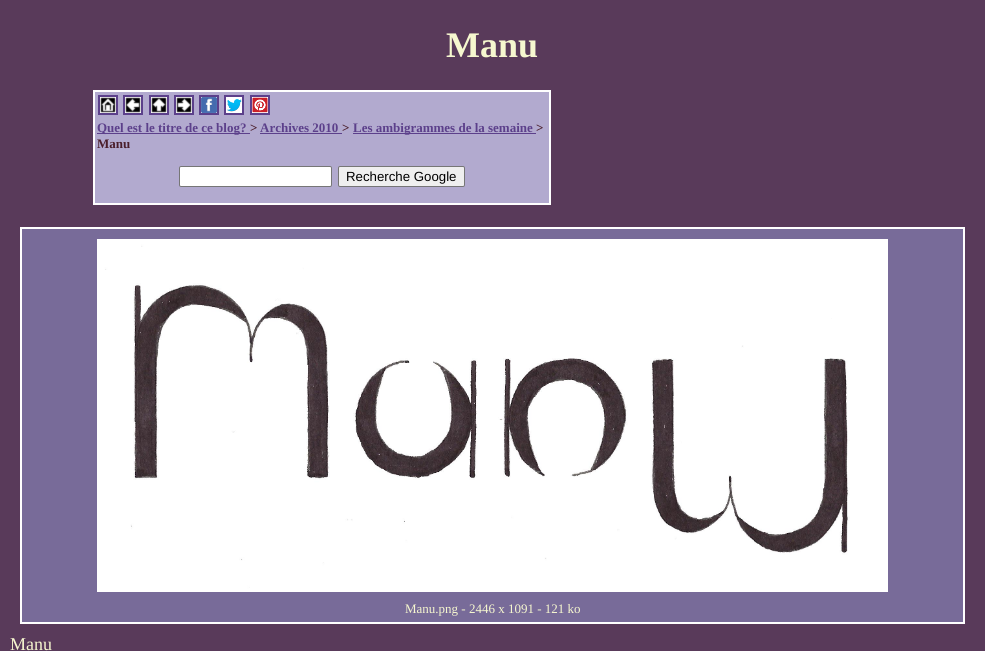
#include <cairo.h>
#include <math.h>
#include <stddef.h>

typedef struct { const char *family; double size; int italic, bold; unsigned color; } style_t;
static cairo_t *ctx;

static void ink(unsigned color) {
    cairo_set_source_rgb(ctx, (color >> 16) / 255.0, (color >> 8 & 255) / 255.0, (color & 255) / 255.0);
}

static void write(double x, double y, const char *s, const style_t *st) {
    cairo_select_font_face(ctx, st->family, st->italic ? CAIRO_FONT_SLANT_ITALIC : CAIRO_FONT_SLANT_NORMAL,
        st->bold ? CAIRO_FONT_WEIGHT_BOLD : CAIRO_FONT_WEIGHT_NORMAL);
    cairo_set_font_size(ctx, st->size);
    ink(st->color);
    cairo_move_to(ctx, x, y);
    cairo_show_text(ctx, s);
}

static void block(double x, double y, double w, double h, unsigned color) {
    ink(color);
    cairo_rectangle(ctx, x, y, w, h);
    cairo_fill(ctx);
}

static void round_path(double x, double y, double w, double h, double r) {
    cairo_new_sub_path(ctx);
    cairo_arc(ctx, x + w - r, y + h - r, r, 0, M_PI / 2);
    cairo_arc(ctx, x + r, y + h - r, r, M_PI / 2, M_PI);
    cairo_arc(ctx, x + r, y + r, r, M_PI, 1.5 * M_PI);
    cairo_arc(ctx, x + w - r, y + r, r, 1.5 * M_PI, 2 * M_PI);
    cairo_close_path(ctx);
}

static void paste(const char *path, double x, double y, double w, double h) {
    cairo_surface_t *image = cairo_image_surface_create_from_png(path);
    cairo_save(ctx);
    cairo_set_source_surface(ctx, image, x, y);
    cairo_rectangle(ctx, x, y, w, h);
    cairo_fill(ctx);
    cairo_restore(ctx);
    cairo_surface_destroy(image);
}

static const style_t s1 = {"Liberation Serif", 36, 0, 1, 0xf6f7cf};
static const style_t s2 = {"Liberation Serif", 13, 0, 1, 0x5c408b};
static const style_t s3 = {"Liberation Serif", 13, 0, 1, 0x4a1e2b};
static const style_t s4 = {"Liberation Sans", 13.25, 0, 0, 0x000000};
static const style_t s5 = {"Liberation Serif", 13, 0, 0, 0xf6f7cf};
static const style_t s6 = {"Liberation Serif", 18, 0, 0, 0xf6f7cf};

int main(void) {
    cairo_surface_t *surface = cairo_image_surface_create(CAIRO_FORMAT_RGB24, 985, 651);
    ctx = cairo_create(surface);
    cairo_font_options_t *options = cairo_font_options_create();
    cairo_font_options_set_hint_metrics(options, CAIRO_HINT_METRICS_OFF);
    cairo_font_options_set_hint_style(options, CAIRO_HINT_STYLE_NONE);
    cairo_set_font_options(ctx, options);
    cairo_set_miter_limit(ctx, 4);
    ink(0x593a5a);
    cairo_paint(ctx);
    write(446, 57, "Manu", &s1);
    ink(0xb2aacf);
    cairo_rectangle(ctx, 94, 91, 456, 113);
    cairo_fill_preserve(ctx);
    ink(0xffffff);
    cairo_stroke(ctx);
    cairo_rectangle(ctx, 99, 96, 18, 18);
    ink(0x5c408b);
    cairo_stroke(ctx);
    cairo_rectangle(ctx, 124, 96, 18, 18);
    cairo_stroke(ctx);
    cairo_rectangle(ctx, 150, 96, 18, 18);
    cairo_stroke(ctx);
    cairo_rectangle(ctx, 175, 96, 18, 18);
    cairo_stroke(ctx);
    cairo_rectangle(ctx, 200, 96, 18, 18);
    cairo_stroke(ctx);
    cairo_rectangle(ctx, 225, 96, 18, 18);
    cairo_stroke(ctx);
    cairo_rectangle(ctx, 251, 96, 18, 18);
    cairo_stroke(ctx);
    paste("pic1.png", 100, 97, 16, 16);
    paste("pic2.png", 125, 97, 16, 16);
    paste("pic3.png", 151, 97, 16, 16);
    paste("pic4.png", 176, 97, 16, 16);
    paste("pic5.png", 201, 97, 16, 16);
    paste("pic6.png", 226, 97, 16, 16);
    paste("pic7.png", 252, 97, 16, 16);
    block(97, 133, 153, 1, 0x5c408b);
    write(97, 132, "Quel est le titre de ce blog?", &s2);
    write(250, 132, ">", &s3);
    write(260, 132, "Archives 2010", &s2);
    block(260, 133, 82, 1, 0x5c408b);
    write(342, 132, ">", &s3);
    block(353, 133, 183, 1, 0x5c408b);
    write(353, 132, "Les ambigrammes de la semaine", &s2);
    write(536, 132, ">", &s3);
    write(97, 148, "Manu", &s3);
    ink(0xffffff);
    round_path(179.5, 166.5, 152, 20, 1.5);
    cairo_fill_preserve(ctx);
    ink(0x767676);
    cairo_set_line_width(ctx, 1);
    cairo_stroke(ctx);
    ink(0xefefef);
    round_path(338.5, 166.5, 126, 20, 1.5);
    cairo_fill_preserve(ctx);
    ink(0x767676);
    cairo_stroke(ctx);
    write(346, 181, "Recherche Google", &s4);
    ink(0x786b99);
    cairo_rectangle(ctx, 21, 228, 943, 395);
    cairo_fill_preserve(ctx);
    ink(0xffffff);
    cairo_set_line_width(ctx, 2);
    cairo_stroke(ctx);
    paste("pic8.png", 97, 239, 791, 353);
    write(405, 613, "Manu.png - 2446 x 1091 - 121 ko", &s5);
    write(10, 650, "Manu", &s6);
    cairo_surface_write_to_png(surface, "screenshot.png");
    cairo_font_options_destroy(options);
    cairo_destroy(ctx);
    cairo_surface_destroy(surface);
    return 0;
}
